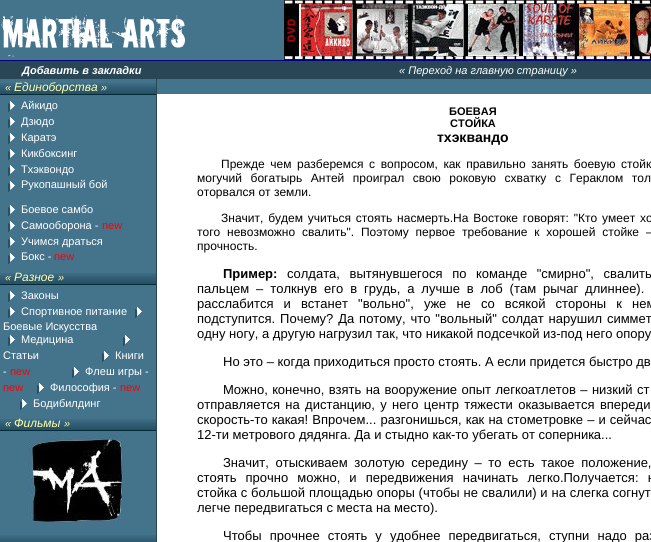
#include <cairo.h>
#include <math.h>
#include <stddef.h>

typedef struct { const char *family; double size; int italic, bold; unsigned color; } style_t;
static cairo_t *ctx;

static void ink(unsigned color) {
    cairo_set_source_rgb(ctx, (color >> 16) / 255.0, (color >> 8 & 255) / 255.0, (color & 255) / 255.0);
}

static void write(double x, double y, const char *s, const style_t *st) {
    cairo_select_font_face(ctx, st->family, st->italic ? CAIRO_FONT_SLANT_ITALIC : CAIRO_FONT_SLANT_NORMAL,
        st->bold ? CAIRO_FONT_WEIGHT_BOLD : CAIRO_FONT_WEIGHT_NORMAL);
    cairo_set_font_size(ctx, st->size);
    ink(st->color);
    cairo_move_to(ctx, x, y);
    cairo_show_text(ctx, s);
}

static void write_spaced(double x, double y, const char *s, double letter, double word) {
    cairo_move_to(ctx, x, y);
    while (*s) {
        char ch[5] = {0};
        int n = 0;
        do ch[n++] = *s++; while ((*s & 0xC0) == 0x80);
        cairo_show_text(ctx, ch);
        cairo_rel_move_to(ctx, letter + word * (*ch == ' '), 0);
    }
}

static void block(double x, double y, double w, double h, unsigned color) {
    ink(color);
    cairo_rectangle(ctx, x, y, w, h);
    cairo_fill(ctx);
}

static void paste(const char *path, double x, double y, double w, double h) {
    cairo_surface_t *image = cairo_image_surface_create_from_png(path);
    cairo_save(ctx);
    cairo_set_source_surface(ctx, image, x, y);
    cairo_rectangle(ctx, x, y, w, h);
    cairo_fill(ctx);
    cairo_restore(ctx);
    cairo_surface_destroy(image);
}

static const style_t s1 = {"Liberation Sans", 11, 1, 1, 0xffffff};
static const style_t s2 = {"Liberation Sans", 11, 1, 0, 0xffffff};
static const style_t s3 = {"Liberation Sans", 11, 1, 0, 0xffffaa};
static const style_t s4 = {"Liberation Sans", 12, 1, 0, 0xffffaa};
static const style_t s5 = {"Liberation Sans", 11, 0, 0, 0xffffff};
static const style_t s6 = {"Liberation Sans", 11, 0, 0, 0xff0000};
static const style_t s7 = {"Liberation Sans", 11, 0, 1, 0x000000};
static const style_t s8 = {"Liberation Sans", 14, 0, 1, 0x000000};
static const style_t s9 = {"Liberation Sans", 12, 0, 0, 0x000000};
static const style_t s10 = {"Liberation Sans", 13, 0, 1, 0x000000};
static const style_t s11 = {"Liberation Sans", 13, 0, 0, 0x000000};

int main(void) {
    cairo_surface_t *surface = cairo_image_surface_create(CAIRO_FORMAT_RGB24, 651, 542);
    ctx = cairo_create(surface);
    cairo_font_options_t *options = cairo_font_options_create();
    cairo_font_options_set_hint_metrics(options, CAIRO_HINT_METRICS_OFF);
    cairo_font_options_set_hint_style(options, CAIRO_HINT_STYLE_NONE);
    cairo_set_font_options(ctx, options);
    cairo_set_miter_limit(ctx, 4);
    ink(0xffffff);
    cairo_paint(ctx);
    block(0, 0, 284, 60, 0x44738c);
    paste("pic1.png", 1, 15, 184, 42);
    paste("pic2.png", 284, 0, 367, 60);
    block(0, 61, 651, 18, 0x284655);
    block(0, 60, 651, 1, 0x000080);
    write(22, 74, "Добавить в закладки", &s1);
    write(399, 74, "« Переход на главную страницу »", &s2);
    block(0, 79, 156, 456, 0x44738c);
    paste("pic3.png", 0, 83, 156, 12);
    write(5, 91, "«", &s3);
    write(14, 91, "Единоборства", &s4);
    write(101, 91, "»", &s3);
    paste("pic4.png", 8, 101, 7, 11);
    write(21, 109, "Айкидо", &s5);
    paste("pic4.png", 8, 117, 7, 11);
    write(21, 125, "Дзюдо", &s5);
    paste("pic4.png", 8, 133, 7, 11);
    write(21, 141, "Каратэ", &s5);
    paste("pic4.png", 8, 149, 7, 11);
    write(21, 157, "Кикбоксинг", &s5);
    paste("pic4.png", 8, 165, 7, 11);
    write(21, 173, "Тхэквондо", &s5);
    paste("pic4.png", 8, 181, 7, 11);
    write(21, 188, "Рукопашный бой", &s5);
    paste("pic4.png", 8, 205, 7, 11);
    write(21, 213, "Боевое самбо", &s5);
    paste("pic4.png", 8, 221, 7, 11);
    write(21, 229, "Самооборона -", &s5);
    write(102, 229, "new", &s6);
    paste("pic4.png", 8, 237, 7, 11);
    write(21, 245, "Учимся драться", &s5);
    paste("pic4.png", 8, 253, 7, 11);
    write(21, 260, "Бокс -", &s5);
    write(54, 260, "new", &s6);
    paste("pic3.png", 0, 273, 156, 12);
    write(5, 281, "«", &s3);
    write(14, 281, "Разное", &s4);
    write(58, 281, "»", &s3);
    paste("pic4.png", 8, 291, 7, 11);
    write(21, 299, "Законы", &s5);
    paste("pic4.png", 8, 307, 7, 11);
    write(21, 315, "Спортивное питание", &s5);
    paste("pic4.png", 135, 307, 7, 11);
    write(3, 330, "Боевые Искусства", &s5);
    paste("pic4.png", 8, 335, 7, 11);
    write(21, 343, "Медицина", &s5);
    paste("pic4.png", 123, 335, 7, 11);
    write(3, 359, "Статьи", &s5);
    paste("pic4.png", 102, 351, 7, 11);
    write(115, 359, "Книги", &s5);
    write(3, 375, "-", &s5);
    write(10, 375, "new", &s6);
    paste("pic4.png", 72, 367, 7, 11);
    write(85, 375, "Флеш игры -", &s5);
    write(3, 391, "new", &s6);
    paste("pic4.png", 37, 383, 7, 11);
    write(50, 391, "Философия -", &s5);
    write(120, 391, "new", &s6);
    paste("pic4.png", 20, 399, 7, 11);
    write(33, 407, "Бодибилдинг", &s5);
    paste("pic3.png", 0, 419, 156, 12);
    write(5, 427, "«", &s3);
    write(14, 427, "Фильмы", &s4);
    write(64, 427, "»", &s3);
    paste("pic5.png", 27, 434, 97, 94);
    paste("pic6.png", 0, 535, 156, 7);
    block(156, 79, 1, 463, 0x284655);
    block(157, 79, 494, 15, 0x44738c);
    write(449, 115, "БОЕВАЯ", &s7);
    write(450, 127, "СТОЙКА", &s7);
    write(437, 142, "тхэквандо", &s8);
    cairo_select_font_face(ctx, "Liberation Sans", CAIRO_FONT_SLANT_NORMAL, CAIRO_FONT_WEIGHT_NORMAL);
    cairo_set_font_size(ctx, 12);
    write_spaced(221, 168, "Прежде чем разберемся с вопросом, как правильно занять боевую стойк", 0, 2.25);
    write_spaced(197, 182, "могучий богатырь Антей проиграл свою роковую схватку с Гераклом тол", 0, 5.25);
    write(197, 196, "оторвался от земли.", &s9);
    write_spaced(221, 222, "Значит, будем учиться стоять насмерть.На Востоке говорят: \"Кто умеет хо", 0, 1.5);
    write_spaced(197, 236, "того невозможно свалить\". Поэтому первое требование к хорошей стойке –", 0, 3.5);
    write(197, 250, "прочность.", &s9);
    write(223, 278, "Пример:", &s10);
    cairo_select_font_face(ctx, "Liberation Sans", CAIRO_FONT_SLANT_NORMAL, CAIRO_FONT_WEIGHT_NORMAL);
    write_spaced(287, 278, "солдата, вытянувшегося по команде \"смирно\", свалить", 0, 6);
    write_spaced(197, 293, "пальцем – толкнув его в грудь, а лучше в лоб (там рычаг длиннее).", 0, 3.25);
    write_spaced(197, 308, "расслабится и встанет \"вольно\", уже не со всякой стороны к нем", 0, 6.5);
    write_spaced(197, 323, "подступится. Почему? Да потому, что \"вольный\" солдат нарушил симмет", 0, 1.25);
    write(197, 338, "одну ногу, а другую нагрузил так, что никакой подсечкой из-под него опору", &s11);
    write(223, 366, "Но это – когда приходиться просто стоять. А если придется быстро дв", &s11);
    write_spaced(223, 394, "Можно, конечно, взять на вооружение опыт легкоатлетов – низкий ст", 0, 0.75);
    write_spaced(197, 409, "отправляется на дистанцию, у него центр тяжести оказывается впереди", 0, 1.75);
    write_spaced(197, 424, "скорость-то какая! Впрочем... разгонишься, как на стометровке – и сейчас", 0, 0.5);
    write(197, 439, "12-ти метрового дядянга. Да и стыдно как-то убегать от соперника...", &s11);
    write_spaced(223, 467, "Значит, отыскиваем золотую середину – то есть такое положение,", 0, 3);
    write_spaced(197, 482, "стоять прочно можно, и передвижения начинать легко.Получается: н", 0, 5.5);
    write_spaced(197, 497, "стойка с большой площадью опоры (чтобы не свалили) и на слегка согнут", 0, 0.25);
    write(197, 512, "легче передвигаться с места на место).", &s11);
    write_spaced(223, 540, "Чтобы прочнее стоять у удобнее передвигаться, ступни надо раз", 0, 4.5);
    cairo_surface_write_to_png(surface, "screenshot.png");
    cairo_font_options_destroy(options);
    cairo_destroy(ctx);
    cairo_surface_destroy(surface);
    return 0;
}
